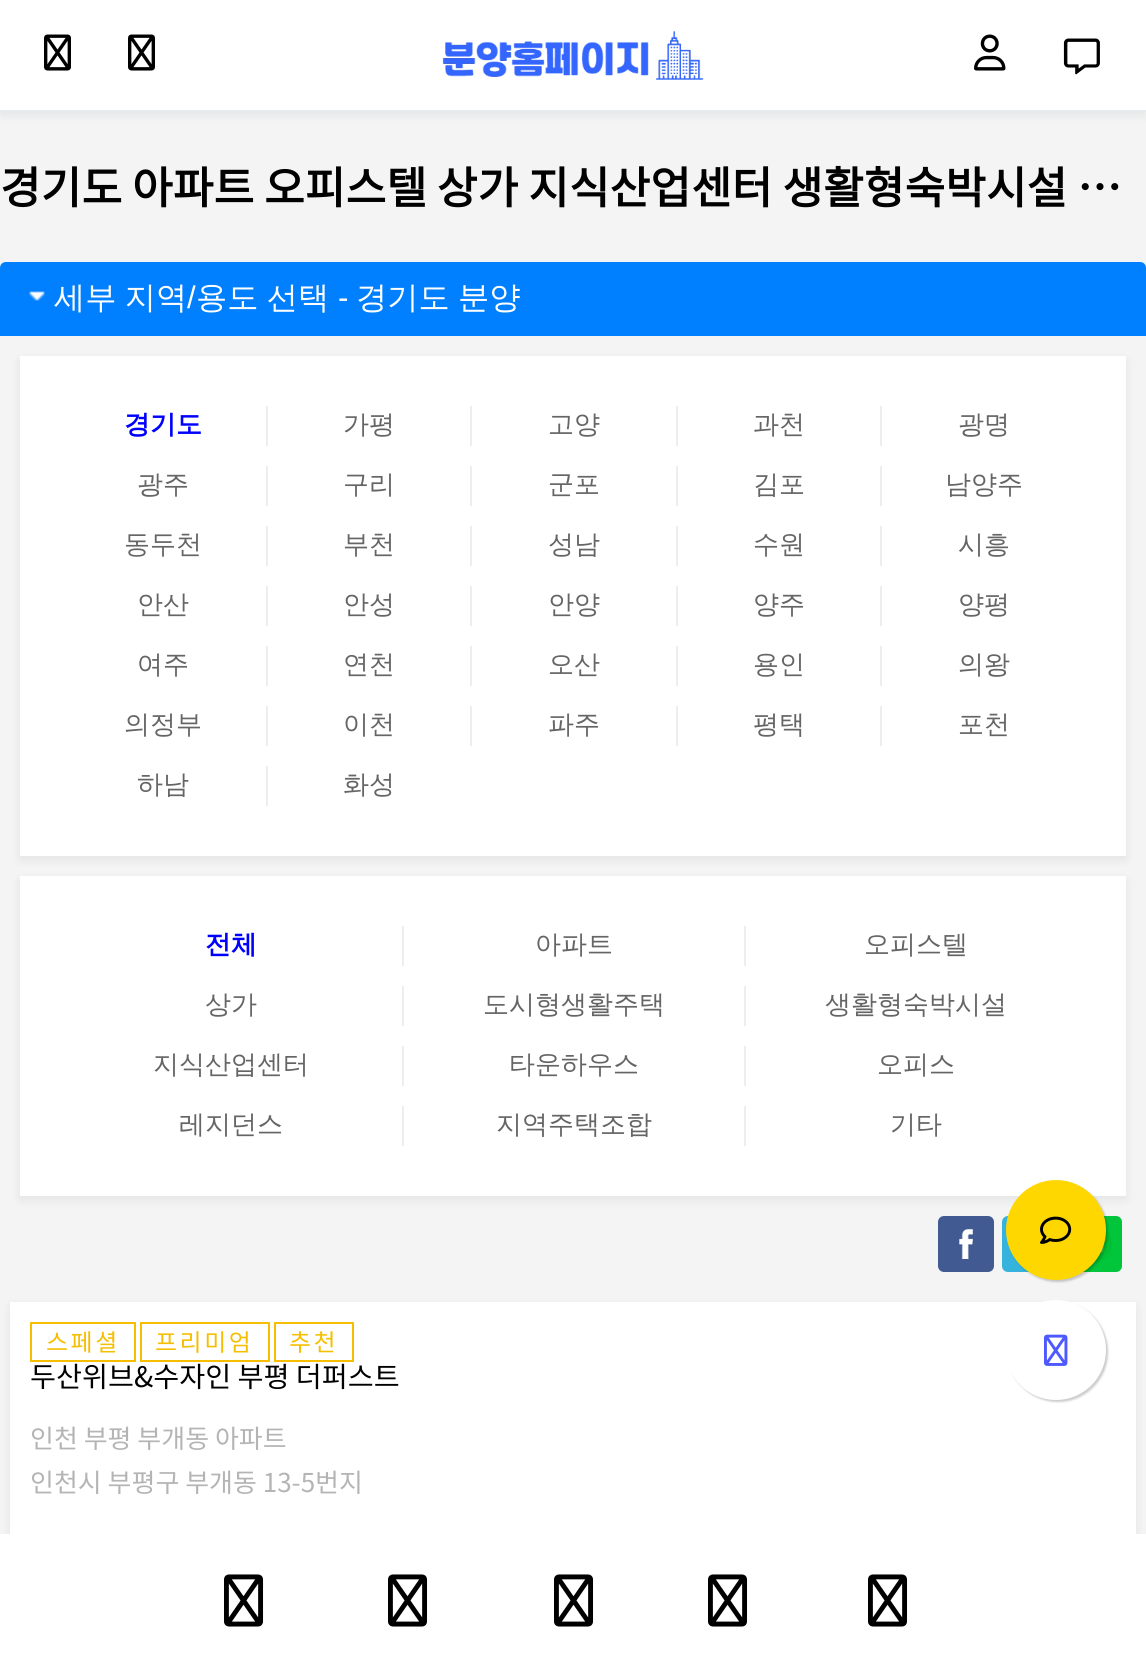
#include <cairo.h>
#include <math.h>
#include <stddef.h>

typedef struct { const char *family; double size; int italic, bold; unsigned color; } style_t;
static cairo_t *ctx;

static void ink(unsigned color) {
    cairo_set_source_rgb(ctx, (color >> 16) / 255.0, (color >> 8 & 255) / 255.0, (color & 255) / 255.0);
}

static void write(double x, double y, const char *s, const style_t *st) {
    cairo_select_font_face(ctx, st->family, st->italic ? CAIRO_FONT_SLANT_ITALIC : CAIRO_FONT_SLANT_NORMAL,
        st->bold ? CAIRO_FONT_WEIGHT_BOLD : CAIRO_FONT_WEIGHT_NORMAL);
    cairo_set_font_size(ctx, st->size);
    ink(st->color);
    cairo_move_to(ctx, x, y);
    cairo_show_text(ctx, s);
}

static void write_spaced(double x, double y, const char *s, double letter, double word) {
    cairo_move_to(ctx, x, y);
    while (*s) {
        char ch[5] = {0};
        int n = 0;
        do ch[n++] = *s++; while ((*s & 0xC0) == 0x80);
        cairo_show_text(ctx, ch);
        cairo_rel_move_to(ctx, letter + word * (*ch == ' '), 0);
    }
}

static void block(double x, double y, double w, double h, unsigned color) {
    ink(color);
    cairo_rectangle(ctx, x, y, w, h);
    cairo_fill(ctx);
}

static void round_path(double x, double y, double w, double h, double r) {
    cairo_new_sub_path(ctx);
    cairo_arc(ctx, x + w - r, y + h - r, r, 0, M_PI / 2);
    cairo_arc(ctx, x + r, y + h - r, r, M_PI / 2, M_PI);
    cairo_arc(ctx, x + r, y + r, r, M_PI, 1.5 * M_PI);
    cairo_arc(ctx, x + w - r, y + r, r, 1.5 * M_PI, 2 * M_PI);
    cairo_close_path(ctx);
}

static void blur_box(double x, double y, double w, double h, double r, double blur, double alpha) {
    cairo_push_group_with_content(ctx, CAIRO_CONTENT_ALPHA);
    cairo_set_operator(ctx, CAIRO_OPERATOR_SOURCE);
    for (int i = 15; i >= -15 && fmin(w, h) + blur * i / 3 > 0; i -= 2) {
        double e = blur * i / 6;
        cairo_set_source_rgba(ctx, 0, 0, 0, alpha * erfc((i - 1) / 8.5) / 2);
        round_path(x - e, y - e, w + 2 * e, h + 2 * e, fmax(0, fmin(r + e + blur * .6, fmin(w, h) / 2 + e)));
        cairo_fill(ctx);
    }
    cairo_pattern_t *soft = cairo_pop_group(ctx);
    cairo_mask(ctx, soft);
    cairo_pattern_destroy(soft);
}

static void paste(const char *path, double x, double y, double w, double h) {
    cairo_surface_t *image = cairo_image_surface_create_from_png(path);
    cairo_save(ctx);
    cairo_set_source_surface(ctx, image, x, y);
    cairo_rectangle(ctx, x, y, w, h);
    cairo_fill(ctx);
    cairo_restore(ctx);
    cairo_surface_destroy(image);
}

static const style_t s1 = {"Noto Sans KR", 44.25, 0, 1, 0x000000};
static const style_t s2 = {"Liberation Sans", 31.25, 0, 0, 0xffffff};
static const style_t s3 = {"WenQuanYi Zen Hei", 26, 0, 1, 0x0000ff};
static const style_t s4 = {"WenQuanYi Zen Hei Medium", 26, 0, 0, 0x656565};
static const style_t s5 = {"Noto Sans KR", 28.25, 0, 0, 0x000000};
static const style_t s6 = {"Noto Sans KR", 26, 0, 0, 0xb4b4b4};

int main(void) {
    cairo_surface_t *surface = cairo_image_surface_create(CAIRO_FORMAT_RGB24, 1146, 1679);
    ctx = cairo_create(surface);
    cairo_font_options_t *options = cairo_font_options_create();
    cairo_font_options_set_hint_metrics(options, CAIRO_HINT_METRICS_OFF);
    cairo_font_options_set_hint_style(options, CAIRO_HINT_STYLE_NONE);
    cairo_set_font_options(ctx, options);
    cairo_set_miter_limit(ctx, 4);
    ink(0xf4f4f4);
    cairo_paint(ctx);
    ink(0xe5e6e8);
    blur_box(0, 4, 1146, 112, 0, 5, 1);
    block(0, 0, 1146, 110, 0xffffff);
    block(0, 110, 1146, 2, 0xe6eaed);
    paste("pic1.png", 442, 30, 262, 50);
    paste("pic2.png", 44, 34, 27, 37);
    paste("pic2.png", 128, 34, 27, 37);
    paste("pic3.png", 974, 34, 32, 37);
    paste("pic4.png", 1063, 38, 37, 37);
    ink(0x000000);
    blur_box(20, 880, 1106, 320, 0, 5, 0.07);
    block(20, 876, 1106, 320, 0xffffff);
    ink(0x35b3dc);
    round_path(1002, 1216, 56, 56, 6);
    cairo_fill(ctx);
    ink(0x01c63b);
    round_path(1066, 1216, 56, 56, 6);
    cairo_fill(ctx);
    paste("pic9.png", 1094, 1227, 18, 35);
    ink(0x000000);
    blur_box(1008, 1182, 100, 100, 50, 1, 0.2);
    ink(0xffd700);
    cairo_arc(ctx, 1056, 1230, 50, 0, 2 * M_PI);
    cairo_fill(ctx);
    paste("pic5.png", 1040, 1216, 32, 28);
    ink(0x000000);
    blur_box(10, 1306, 1126, 318, 0, 5, 0.07);
    block(10, 1302, 1126, 232, 0xffffff);
    ink(0x000000);
    blur_box(1008, 1302, 100, 100, 50, 1, 0.2);
    ink(0xffffff);
    cairo_arc(ctx, 1056, 1350, 50, 0, 2 * M_PI);
    cairo_fill(ctx);
    paste("pic6.png", 1044, 1334, 24, 32);
    write(0, 204, "경기도 아파트 오피스텔 상가 지식산업센터 생활형숙박시설 …", &s1);
    ink(0x007fff);
    cairo_new_path(ctx);
    cairo_move_to(ctx, 6, 262);
    cairo_line_to(ctx, 1140, 262);
    cairo_curve_to(ctx, 1143.5, 262, 1146, 264.5, 1146, 268);
    cairo_line_to(ctx, 1146, 336);
    cairo_line_to(ctx, 0, 336);
    cairo_line_to(ctx, 0, 268);
    cairo_curve_to(ctx, 0, 264.5, 2.5, 262, 6, 262);
    cairo_close_path(ctx);
    cairo_fill(ctx);
    paste("pic7.png", 29, 291, 16, 10);
    cairo_select_font_face(ctx, "WenQuanYi Zen Hei Medium", CAIRO_FONT_SLANT_NORMAL, CAIRO_FONT_WEIGHT_NORMAL);
    cairo_set_font_size(ctx, 31.25);
    ink(0xffffff);
    write_spaced(54, 308, "세부 지역", 0, -1);
    write(187, 308, "/", &s2);
    cairo_select_font_face(ctx, "WenQuanYi Zen Hei Medium", CAIRO_FONT_SLANT_NORMAL, CAIRO_FONT_WEIGHT_NORMAL);
    write_spaced(196, 308, "용도 선택", 0, -1);
    write(338, 308, "-", &s2);
    cairo_select_font_face(ctx, "WenQuanYi Zen Hei Medium", CAIRO_FONT_SLANT_NORMAL, CAIRO_FONT_WEIGHT_NORMAL);
    write_spaced(356, 308, "경기도 분양", 0, -1);
    ink(0x000000);
    blur_box(20, 360, 1106, 500, 0, 5, 0.07);
    block(20, 356, 1106, 500, 0xffffff);
    write(124, 433, "경기도", &s3);
    block(266, 406, 2, 40, 0xeeeeee);
    write(343, 433, "가평", &s4);
    block(470, 406, 2, 40, 0xeeeeee);
    write(548, 433, "고양", &s4);
    block(676, 406, 2, 40, 0xeeeeee);
    write(753, 433, "과천", &s4);
    block(880, 406, 2, 40, 0xeeeeee);
    write(958, 433, "광명", &s4);
    write(137, 493, "광주", &s4);
    block(266, 466, 2, 40, 0xeeeeee);
    write(343, 493, "구리", &s4);
    block(470, 466, 2, 40, 0xeeeeee);
    write(548, 493, "군포", &s4);
    block(676, 466, 2, 40, 0xeeeeee);
    write(753, 493, "김포", &s4);
    block(880, 466, 2, 40, 0xeeeeee);
    write(945, 493, "남양주", &s4);
    write(124, 553, "동두천", &s4);
    block(266, 526, 2, 40, 0xeeeeee);
    write(343, 553, "부천", &s4);
    block(470, 526, 2, 40, 0xeeeeee);
    write(548, 553, "성남", &s4);
    block(676, 526, 2, 40, 0xeeeeee);
    write(753, 553, "수원", &s4);
    block(880, 526, 2, 40, 0xeeeeee);
    write(958, 553, "시흥", &s4);
    write(137, 613, "안산", &s4);
    block(266, 586, 2, 40, 0xeeeeee);
    write(343, 613, "안성", &s4);
    block(470, 586, 2, 40, 0xeeeeee);
    write(548, 613, "안양", &s4);
    block(676, 586, 2, 40, 0xeeeeee);
    write(753, 613, "양주", &s4);
    block(880, 586, 2, 40, 0xeeeeee);
    write(958, 613, "양평", &s4);
    write(137, 673, "여주", &s4);
    block(266, 646, 2, 40, 0xeeeeee);
    write(343, 673, "연천", &s4);
    block(470, 646, 2, 40, 0xeeeeee);
    write(548, 673, "오산", &s4);
    block(676, 646, 2, 40, 0xeeeeee);
    write(753, 673, "용인", &s4);
    block(880, 646, 2, 40, 0xeeeeee);
    write(958, 673, "의왕", &s4);
    write(124, 733, "의정부", &s4);
    block(266, 706, 2, 40, 0xeeeeee);
    write(343, 733, "이천", &s4);
    block(470, 706, 2, 40, 0xeeeeee);
    write(548, 733, "파주", &s4);
    block(676, 706, 2, 40, 0xeeeeee);
    write(753, 733, "평택", &s4);
    block(880, 706, 2, 40, 0xeeeeee);
    write(958, 733, "포천", &s4);
    write(137, 793, "하남", &s4);
    block(266, 766, 2, 40, 0xeeeeee);
    write(343, 793, "화성", &s4);
    write(205, 953, "전체", &s3);
    block(402, 926, 2, 40, 0xeeeeee);
    write(535, 953, "아파트", &s4);
    block(744, 926, 2, 40, 0xeeeeee);
    write(864, 953, "오피스텔", &s4);
    write(205, 1013, "상가", &s4);
    block(402, 986, 2, 40, 0xeeeeee);
    write(483, 1013, "도시형생활주택", &s4);
    block(744, 986, 2, 40, 0xeeeeee);
    write(825, 1013, "생활형숙박시설", &s4);
    write(153, 1073, "지식산업센터", &s4);
    block(402, 1046, 2, 40, 0xeeeeee);
    write(509, 1073, "타운하우스", &s4);
    block(744, 1046, 2, 40, 0xeeeeee);
    write(877, 1073, "오피스", &s4);
    write(179, 1133, "레지던스", &s4);
    block(402, 1106, 2, 40, 0xeeeeee);
    write(496, 1133, "지역주택조합", &s4);
    block(744, 1106, 2, 40, 0xeeeeee);
    write(890, 1133, "기타", &s4);
    ink(0x415b92);
    round_path(938, 1216, 56, 56, 6);
    cairo_fill(ctx);
    paste("pic8.png", 959, 1229, 14, 30);
    cairo_rectangle(ctx, 31, 1323, 104, 38);
    ink(0xf6be00);
    cairo_stroke(ctx);
    cairo_select_font_face(ctx, "Noto Sans KR", CAIRO_FONT_SLANT_NORMAL, CAIRO_FONT_WEIGHT_NORMAL);
    cairo_set_font_size(ctx, 24);
    write_spaced(46, 1351, "스페셜", 2.5, 0);
    cairo_rectangle(ctx, 141, 1323, 128, 38);
    cairo_stroke(ctx);
    write_spaced(155, 1351, "프리미엄", 2.5, 0);
    cairo_rectangle(ctx, 275, 1323, 78, 38);
    cairo_stroke(ctx);
    write_spaced(289, 1351, "추천", 2.5, 0);
    write(30, 1387, "두산위브&수자인 부평 더퍼스트", &s5);
    write(30, 1448, "인천 부평 부개동 아파트", &s6);
    write(30, 1492, "인천시 부평구 부개동 13-5번지", &s6);
    block(0, 1534, 1146, 145, 0xffffff);
    paste("pic10.png", 224, 1574, 40, 53);
    paste("pic10.png", 388, 1574, 40, 53);
    paste("pic10.png", 554, 1574, 40, 53);
    paste("pic10.png", 708, 1574, 40, 53);
    paste("pic10.png", 868, 1574, 40, 53);
    cairo_surface_write_to_png(surface, "screenshot.png");
    cairo_font_options_destroy(options);
    cairo_destroy(ctx);
    cairo_surface_destroy(surface);
    return 0;
}
